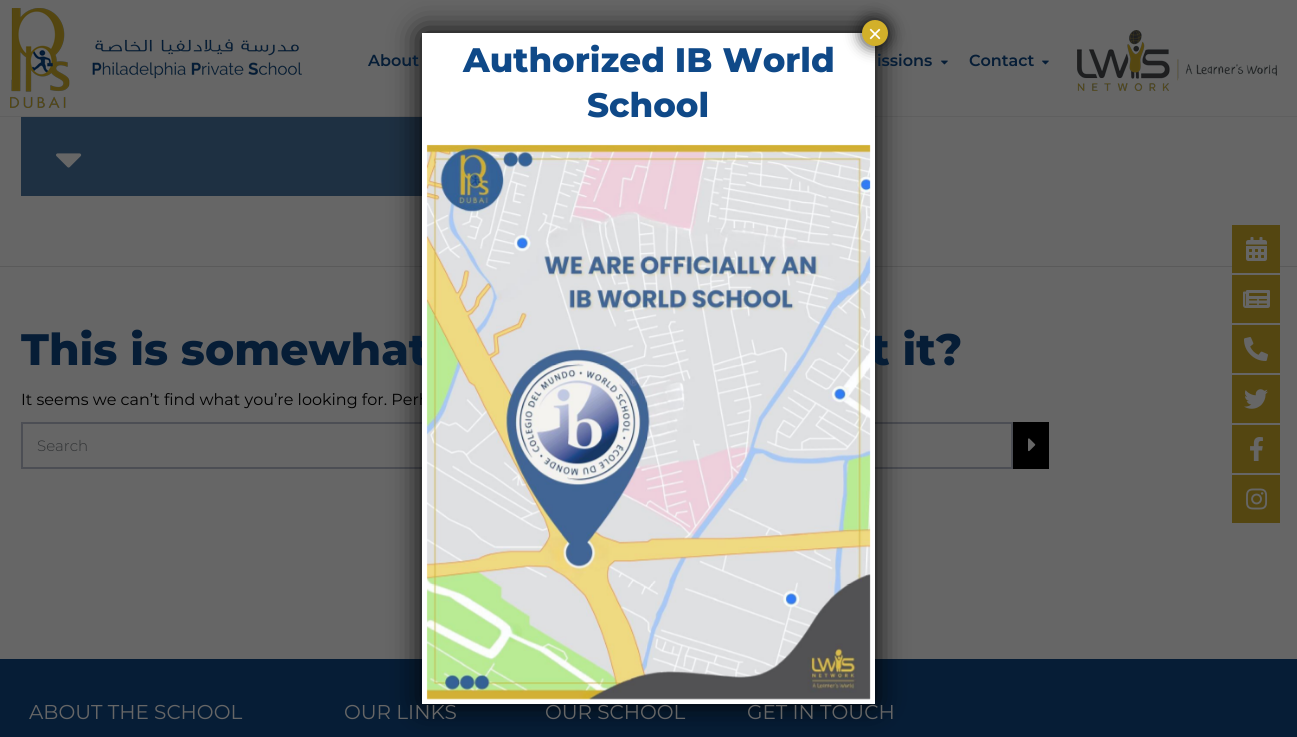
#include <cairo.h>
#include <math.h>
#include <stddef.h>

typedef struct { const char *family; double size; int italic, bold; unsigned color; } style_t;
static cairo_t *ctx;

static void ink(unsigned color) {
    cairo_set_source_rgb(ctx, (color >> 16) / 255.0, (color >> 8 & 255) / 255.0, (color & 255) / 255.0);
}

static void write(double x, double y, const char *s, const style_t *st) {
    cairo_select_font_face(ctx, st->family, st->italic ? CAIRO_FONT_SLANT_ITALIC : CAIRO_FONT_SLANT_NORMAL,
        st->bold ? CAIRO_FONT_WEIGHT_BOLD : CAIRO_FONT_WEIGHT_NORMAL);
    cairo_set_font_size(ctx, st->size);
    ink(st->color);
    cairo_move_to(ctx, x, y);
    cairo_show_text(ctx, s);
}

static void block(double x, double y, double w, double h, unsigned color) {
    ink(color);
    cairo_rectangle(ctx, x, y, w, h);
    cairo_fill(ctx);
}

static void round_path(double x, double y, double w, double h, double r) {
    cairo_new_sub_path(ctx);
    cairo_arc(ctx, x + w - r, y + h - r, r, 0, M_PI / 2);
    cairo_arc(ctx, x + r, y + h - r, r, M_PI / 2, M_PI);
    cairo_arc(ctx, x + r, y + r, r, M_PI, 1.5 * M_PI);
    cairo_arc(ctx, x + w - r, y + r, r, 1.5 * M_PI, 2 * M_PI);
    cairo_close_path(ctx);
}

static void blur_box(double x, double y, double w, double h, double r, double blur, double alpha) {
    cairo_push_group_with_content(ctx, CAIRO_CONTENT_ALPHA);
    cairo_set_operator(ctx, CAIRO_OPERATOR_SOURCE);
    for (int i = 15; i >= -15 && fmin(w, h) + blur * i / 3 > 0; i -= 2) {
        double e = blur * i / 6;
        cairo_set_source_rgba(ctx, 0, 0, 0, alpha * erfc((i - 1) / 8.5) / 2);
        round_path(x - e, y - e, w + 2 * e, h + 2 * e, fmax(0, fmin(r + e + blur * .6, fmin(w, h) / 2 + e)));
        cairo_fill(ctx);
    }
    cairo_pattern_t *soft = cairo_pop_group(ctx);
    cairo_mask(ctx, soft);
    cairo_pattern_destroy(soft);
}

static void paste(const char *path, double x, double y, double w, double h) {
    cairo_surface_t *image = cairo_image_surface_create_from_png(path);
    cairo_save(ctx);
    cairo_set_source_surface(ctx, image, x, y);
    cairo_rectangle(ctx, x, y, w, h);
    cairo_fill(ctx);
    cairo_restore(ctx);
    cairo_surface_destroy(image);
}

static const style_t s1 = {"Montserrat ExtraBold", 44, 0, 0, 0x061d36};
static const style_t s2 = {"Montserrat", 16, 0, 0, 0x000000};
static const style_t s3 = {"Liberation Sans", 24, 0, 0, 0xffffff};
static const style_t s4 = {"Montserrat ExtraBold", 34, 0, 0, 0x0f4988};
static const style_t s5 = {"Montserrat SemiBold", 16, 0, 0, 0x061d36};
static const style_t s6 = {"Montserrat Light", 15, 0, 0, 0x313335};
static const style_t s7 = {"Montserrat", 20, 0, 0, 0x666666};

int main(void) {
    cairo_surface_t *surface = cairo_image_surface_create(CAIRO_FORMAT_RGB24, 1297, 737);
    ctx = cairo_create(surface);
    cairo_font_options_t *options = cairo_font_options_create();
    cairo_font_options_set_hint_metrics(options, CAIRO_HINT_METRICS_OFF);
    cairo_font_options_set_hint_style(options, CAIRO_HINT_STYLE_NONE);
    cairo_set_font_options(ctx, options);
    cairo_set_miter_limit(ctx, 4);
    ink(0x666666);
    cairo_paint(ctx);
    block(0, 116, 1297, 1, 0x5f5f5f);
    block(0, 266, 1297, 1, 0x5a5a5a);
    block(21, 117, 401, 79, 0x1e3042);
    cairo_rectangle(ctx, 22, 423, 990, 45);
    ink(0x4c4e54);
    cairo_stroke(ctx);
    block(0, 659, 1297, 78, 0x061d36);
    ink(0x020202);
    blur_box(422, 33, 453, 671, 0, 15, 1);
    write(21, 365, "This is somewhat", &s1);
    write(870, 365, "t it?", &s1);
    write(21, 405, "It seems we can’t find what you’re looking for. Perh", &s2);
    block(422, 33, 453, 671, 0xffffff);
    ink(0x020202);
    blur_box(861, 19, 28, 28, 14, 7.5, 0.75);
    ink(0xd2b02a);
    cairo_arc(ctx, 875, 33, 12, 0, 2 * M_PI);
    cairo_fill_preserve(ctx);
    cairo_stroke(ctx);
    write(868, 42, "×", &s3);
    write(463, 72, "Authorized IB World", &s4);
    write(587, 117, "School", &s4);
    paste("pic1.png", 426, 144, 445, 556);
    paste("pic2.png", 10, 8, 292, 100);
    write(368, 66, "About", &s5);
    write(877, 66, "issions", &s5);
    paste("pic3.png", 941, 60, 7, 5);
    write(969, 66, "Contact", &s5);
    paste("pic3.png", 1042, 60, 7, 5);
    paste("pic4.png", 1077, 30, 200, 61);
    paste("pic5.png", 56, 153, 26, 15);
    write(37, 451, "Search", &s6);
    block(1013, 422, 36, 47, 0x000000);
    paste("pic6.png", 1028, 438, 8, 14);
    block(1232, 225, 48, 48, 0x544611);
    paste("pic7.png", 1246, 237, 21, 24);
    block(1232, 275, 48, 48, 0x544611);
    paste("pic8.png", 1243, 290, 27, 18);
    block(1232, 325, 48, 48, 0x544611);
    paste("pic9.png", 1244, 337, 24, 24);
    block(1232, 375, 48, 48, 0x544611);
    paste("pic10.png", 1244, 389, 24, 20);
    block(1232, 425, 48, 48, 0x544611);
    paste("pic11.png", 1250, 437, 13, 24);
    block(1232, 475, 48, 48, 0x544611);
    paste("pic12.png", 1246, 488, 22, 22);
    write(29, 719, "ABOUT THE SCHOOL", &s7);
    write(344, 719, "OUR LINKS", &s7);
    write(545, 719, "OUR SCHOOL", &s7);
    write(747, 719, "GET IN TOUCH", &s7);
    cairo_surface_write_to_png(surface, "screenshot.png");
    cairo_font_options_destroy(options);
    cairo_destroy(ctx);
    cairo_surface_destroy(surface);
    return 0;
}
